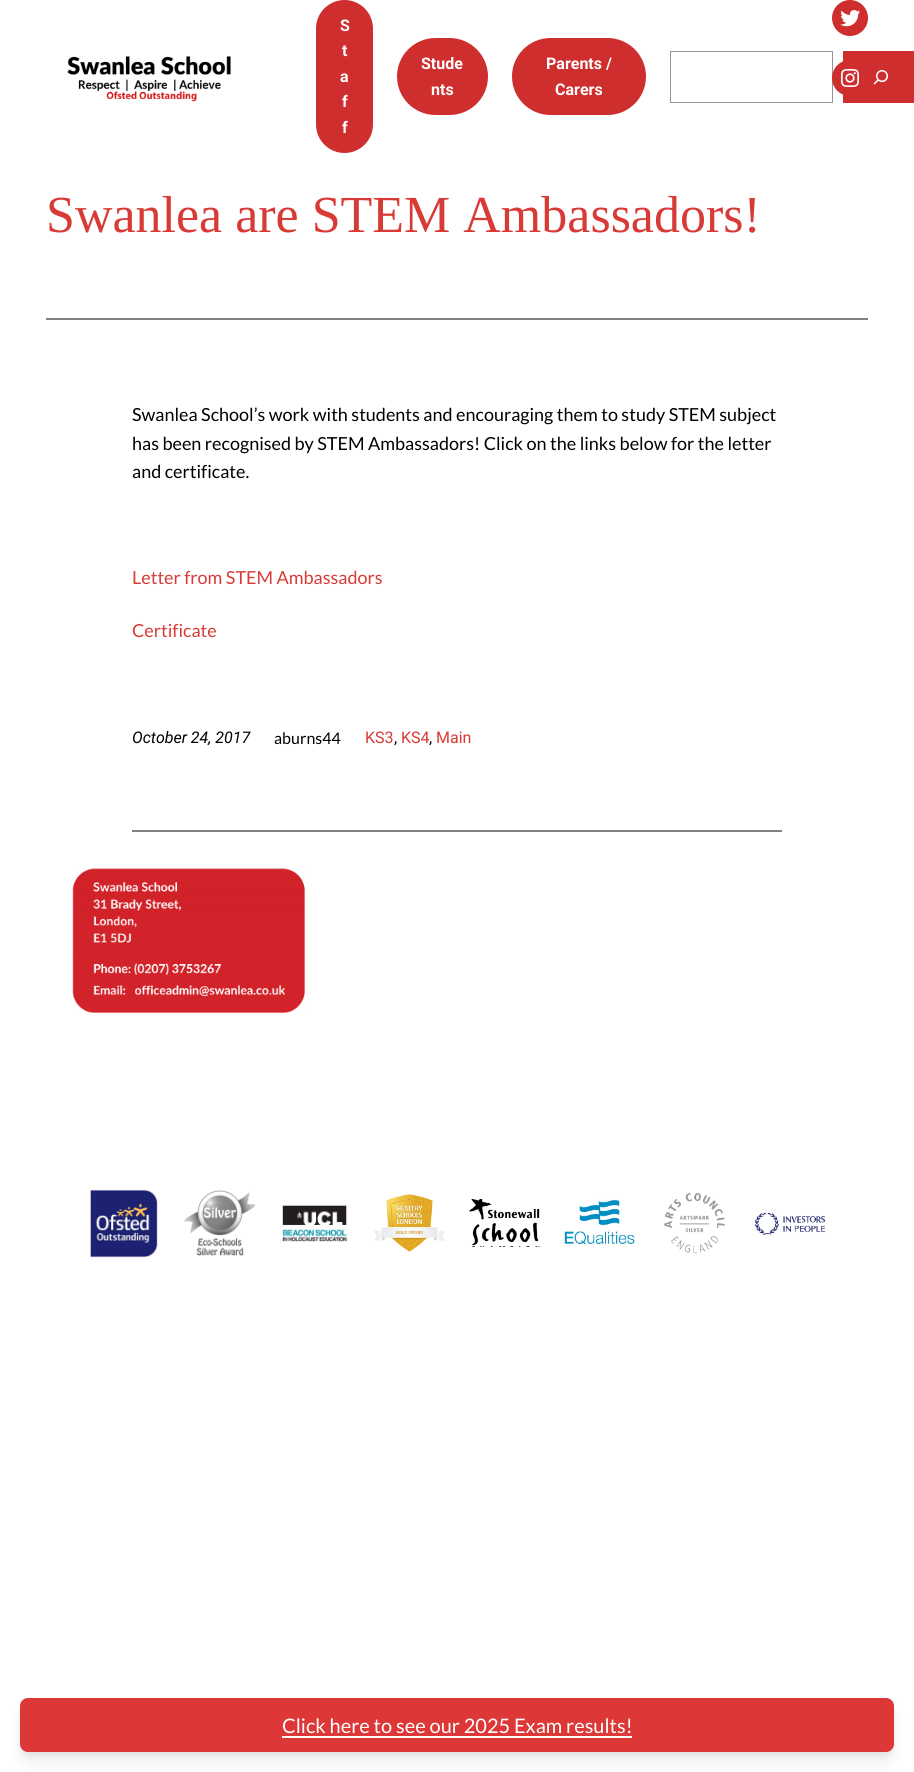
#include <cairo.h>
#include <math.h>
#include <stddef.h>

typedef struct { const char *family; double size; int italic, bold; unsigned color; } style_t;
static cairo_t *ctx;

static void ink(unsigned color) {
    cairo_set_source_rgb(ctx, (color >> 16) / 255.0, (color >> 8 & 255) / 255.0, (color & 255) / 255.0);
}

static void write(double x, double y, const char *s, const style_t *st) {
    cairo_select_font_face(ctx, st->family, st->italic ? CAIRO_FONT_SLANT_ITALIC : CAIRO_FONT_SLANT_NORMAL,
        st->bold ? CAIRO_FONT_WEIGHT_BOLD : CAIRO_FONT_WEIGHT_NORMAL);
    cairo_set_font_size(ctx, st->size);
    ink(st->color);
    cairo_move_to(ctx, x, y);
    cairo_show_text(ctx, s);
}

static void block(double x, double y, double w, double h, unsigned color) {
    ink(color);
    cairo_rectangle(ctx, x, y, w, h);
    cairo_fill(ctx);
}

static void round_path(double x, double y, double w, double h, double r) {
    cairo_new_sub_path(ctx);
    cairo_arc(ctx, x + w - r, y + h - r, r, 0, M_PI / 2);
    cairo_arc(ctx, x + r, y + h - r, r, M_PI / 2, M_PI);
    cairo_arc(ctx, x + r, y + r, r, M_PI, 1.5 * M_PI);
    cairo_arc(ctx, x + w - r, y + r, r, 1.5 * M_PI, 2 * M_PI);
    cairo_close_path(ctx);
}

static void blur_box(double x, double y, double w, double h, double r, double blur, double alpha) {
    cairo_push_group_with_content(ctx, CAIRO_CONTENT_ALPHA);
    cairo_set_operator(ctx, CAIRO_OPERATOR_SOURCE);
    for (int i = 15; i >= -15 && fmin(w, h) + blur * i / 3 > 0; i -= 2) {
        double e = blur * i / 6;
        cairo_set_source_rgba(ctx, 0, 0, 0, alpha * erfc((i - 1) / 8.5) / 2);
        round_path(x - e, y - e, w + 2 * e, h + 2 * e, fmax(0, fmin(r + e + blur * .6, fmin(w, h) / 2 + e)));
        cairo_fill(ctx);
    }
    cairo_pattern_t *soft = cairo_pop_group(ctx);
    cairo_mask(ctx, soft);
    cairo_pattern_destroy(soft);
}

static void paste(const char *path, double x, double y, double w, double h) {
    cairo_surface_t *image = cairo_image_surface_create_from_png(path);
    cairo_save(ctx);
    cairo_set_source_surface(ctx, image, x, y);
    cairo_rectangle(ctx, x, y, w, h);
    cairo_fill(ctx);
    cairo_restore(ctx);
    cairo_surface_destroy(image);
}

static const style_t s1 = {"Roboto", 16, 0, 1, 0xffffff};
static const style_t s2 = {"Liberation Serif", 52, 0, 0, 0xd83a36};
static const style_t s3 = {"Lato", 18, 0, 0, 0x000000};
static const style_t s4 = {"Lato", 18, 0, 0, 0xd83a36};
static const style_t s5 = {"Roboto", 16, 1, 0, 0x000000};
static const style_t s6 = {"Lato", 16, 0, 0, 0x000000};
static const style_t s7 = {"Roboto", 16, 0, 0, 0xd83a36};
static const style_t s8 = {"Roboto", 16, 0, 0, 0x000000};
static const style_t s9 = {"Lato", 20, 0, 0, 0xffffff};

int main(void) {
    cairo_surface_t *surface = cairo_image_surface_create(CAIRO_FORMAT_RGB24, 914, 1772);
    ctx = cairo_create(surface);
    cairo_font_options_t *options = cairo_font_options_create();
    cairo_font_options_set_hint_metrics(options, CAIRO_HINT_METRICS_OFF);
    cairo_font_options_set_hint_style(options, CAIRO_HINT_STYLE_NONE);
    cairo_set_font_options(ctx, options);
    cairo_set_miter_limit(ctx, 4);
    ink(0xffffff);
    cairo_paint(ctx);
    ink(0xcf2e2e);
    round_path(316, 0, 57, 153, 28.5);
    cairo_fill(ctx);
    write(340, 31, "S", &s1);
    write(342, 56, "t", &s1);
    write(340, 82, "a", &s1);
    write(342, 107, "f", &s1);
    write(342, 133, "f", &s1);
    ink(0xcf2e2e);
    round_path(397, 38, 91, 77, 38.5);
    cairo_fill(ctx);
    write(421, 69, "Stude", &s1);
    write(431, 95, "nts", &s1);
    ink(0xcf2e2e);
    round_path(512, 38, 134, 77, 38.5);
    cairo_fill(ctx);
    write(546, 69, "Parents /", &s1);
    write(555, 95, "Carers", &s1);
    ink(0xcf2e2e);
    cairo_new_path(ctx);
    cairo_arc(ctx, 850, 18, 18, 0, 2 * M_PI);
    cairo_fill(ctx);
    paste("pic1.png", 840, 10, 20, 17);
    cairo_rectangle(ctx, 670.5, 51.5, 162, 51);
    ink(0x949494);
    cairo_set_line_width(ctx, 1);
    cairo_stroke(ctx);
    block(843, 51, 71, 52, 0xcf2e2e);
    cairo_arc(ctx, 850, 78, 18, 0, 2 * M_PI);
    cairo_fill(ctx);
    paste("pic2.png", 841, 69, 18, 18);
    paste("pic3.png", 67, 56, 164, 46);
    paste("pic4.png", 873, 70, 16, 15);
    write(46, 232, "Swanlea are STEM Ambassadors!", &s2);
    block(46, 318, 822, 2, 0x808080);
    write(132, 421, "Swanlea School’s work with students and encouraging them to study STEM subject", &s3);
    write(132, 450, "has been recognised by STEM Ambassadors! Click on the links below for the letter", &s3);
    write(132, 478, "and certificate.", &s3);
    write(132, 584, "Letter from STEM Ambassadors", &s4);
    write(132, 637, "Certificate", &s4);
    write(132, 743, "October 24, 2017", &s5);
    write(274, 744, "aburns44", &s6);
    write(365, 743, "KS3", &s7);
    write(394, 743, ",", &s8);
    write(401, 743, "KS4", &s7);
    write(429, 743, ",", &s8);
    write(436, 743, "Main", &s7);
    block(132, 830, 650, 2, 0x808080);
    paste("pic5.png", 72, 868, 233, 145);
    paste("pic6.png", 90, 1189, 68, 69);
    paste("pic7.png", 184, 1190, 71, 66);
    paste("pic8.png", 282, 1205, 66, 37);
    paste("pic9.png", 374, 1194, 71, 58);
    paste("pic10.png", 469, 1199, 71, 48);
    paste("pic11.png", 564, 1199, 71, 46);
    paste("pic12.png", 664, 1192, 61, 62);
    paste("pic13.png", 754, 1212, 72, 23);
    ink(0x050505);
    blur_box(22, 1704, 870, 50, 6, 3, 0.05);
    blur_box(23, 1711, 868, 48, 5, 7.5, 0.1);
    ink(0xde3737);
    round_path(20, 1698, 874, 54, 8);
    cairo_fill(ctx);
    write(282, 1733, "Click here to see our 2025 Exam results!", &s9);
    block(282, 1736, 350, 2, 0xffffff);
    cairo_surface_write_to_png(surface, "screenshot.png");
    cairo_font_options_destroy(options);
    cairo_destroy(ctx);
    cairo_surface_destroy(surface);
    return 0;
}
